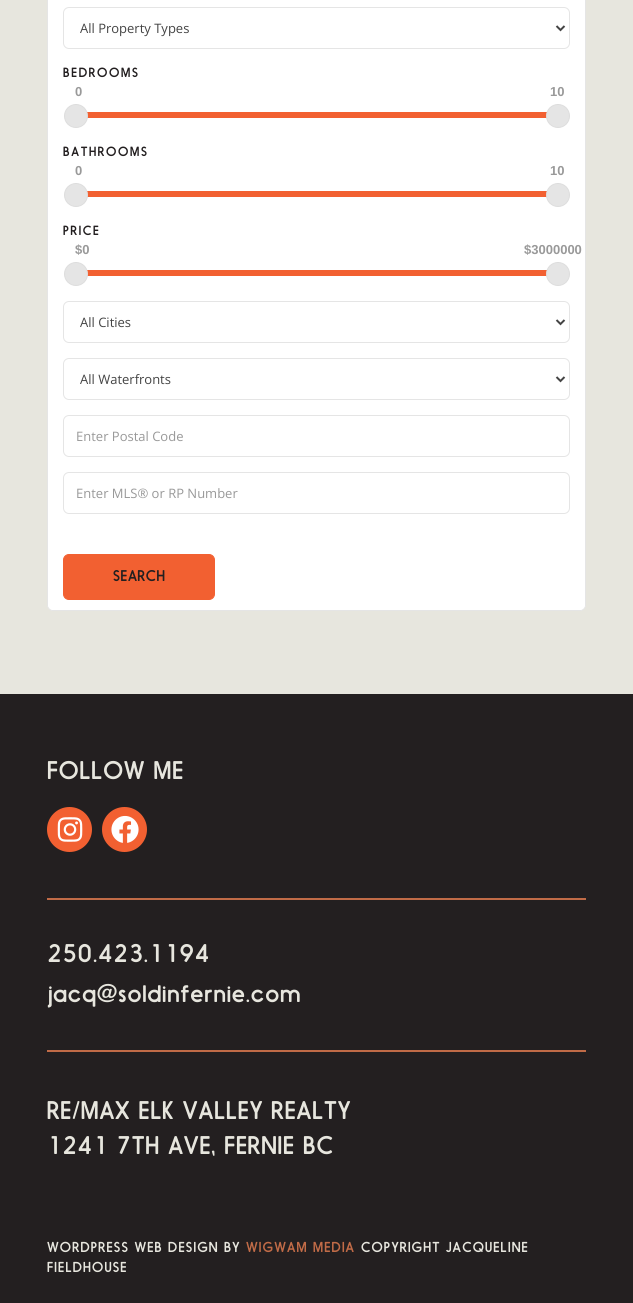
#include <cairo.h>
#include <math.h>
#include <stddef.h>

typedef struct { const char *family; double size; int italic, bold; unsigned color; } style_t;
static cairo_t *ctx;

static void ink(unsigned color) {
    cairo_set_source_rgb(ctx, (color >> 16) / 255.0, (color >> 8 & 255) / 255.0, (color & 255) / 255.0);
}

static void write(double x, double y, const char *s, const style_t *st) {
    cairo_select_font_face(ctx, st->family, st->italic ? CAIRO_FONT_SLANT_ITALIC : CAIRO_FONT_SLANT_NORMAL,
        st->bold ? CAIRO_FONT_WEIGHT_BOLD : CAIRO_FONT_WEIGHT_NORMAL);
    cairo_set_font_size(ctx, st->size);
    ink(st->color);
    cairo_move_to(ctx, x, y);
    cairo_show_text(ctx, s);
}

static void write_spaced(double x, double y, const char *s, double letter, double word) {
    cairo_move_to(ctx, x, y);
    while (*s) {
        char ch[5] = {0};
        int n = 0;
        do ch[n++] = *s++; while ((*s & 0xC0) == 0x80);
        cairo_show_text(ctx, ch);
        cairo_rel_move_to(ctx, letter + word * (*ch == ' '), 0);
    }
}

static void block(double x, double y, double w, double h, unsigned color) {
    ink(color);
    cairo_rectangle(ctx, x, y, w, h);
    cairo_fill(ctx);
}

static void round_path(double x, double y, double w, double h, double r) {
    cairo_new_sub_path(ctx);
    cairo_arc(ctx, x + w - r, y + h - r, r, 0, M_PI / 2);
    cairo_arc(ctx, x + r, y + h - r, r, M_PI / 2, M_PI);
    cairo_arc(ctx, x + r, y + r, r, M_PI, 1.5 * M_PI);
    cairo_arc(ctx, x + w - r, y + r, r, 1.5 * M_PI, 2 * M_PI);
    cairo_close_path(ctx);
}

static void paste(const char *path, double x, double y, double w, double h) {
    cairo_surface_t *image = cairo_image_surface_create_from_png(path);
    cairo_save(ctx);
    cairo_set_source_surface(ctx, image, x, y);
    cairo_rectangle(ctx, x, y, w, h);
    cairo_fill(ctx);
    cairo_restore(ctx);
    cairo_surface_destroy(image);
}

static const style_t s1 = {"Open Sans", 13, 0, 0, 0x444444};
static const style_t s2 = {"Liberation Sans", 13, 0, 1, 0x999999};
static const style_t s3 = {"Open Sans", 13, 0, 0, 0x999999};

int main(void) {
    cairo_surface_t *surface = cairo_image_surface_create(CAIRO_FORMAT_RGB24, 633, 1303);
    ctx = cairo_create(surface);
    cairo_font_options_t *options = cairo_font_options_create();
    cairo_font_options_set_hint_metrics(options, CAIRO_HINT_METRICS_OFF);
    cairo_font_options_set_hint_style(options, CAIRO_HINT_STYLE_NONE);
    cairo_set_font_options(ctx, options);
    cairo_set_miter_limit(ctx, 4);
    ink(0xe7e6de);
    cairo_paint(ctx);
    ink(0xffffff);
    round_path(47.5, -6.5, 538, 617, 5.5);
    cairo_fill_preserve(ctx);
    ink(0xe5e5e5);
    cairo_set_line_width(ctx, 1);
    cairo_stroke(ctx);
    round_path(63.5, 7.5, 506, 41, 5.5);
    cairo_stroke(ctx);
    cairo_new_path(ctx);
    cairo_move_to(ctx, 556.5, 26);
    cairo_line_to(ctx, 560.5, 30);
    cairo_line_to(ctx, 564.5, 26);
    ink(0x444444);
    cairo_set_line_width(ctx, 2);
    cairo_stroke(ctx);
    write(80, 33, "All Property Types", &s1);
    cairo_select_font_face(ctx, "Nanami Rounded", CAIRO_FONT_SLANT_NORMAL, CAIRO_FONT_WEIGHT_BOLD);
    cairo_set_font_size(ctx, 12);
    ink(0x231f20);
    write_spaced(63, 77, "BEDROOMS", 2, 0);
    write(75, 96, "0", &s2);
    write(550, 96, "10", &s2);
    block(87, 112, 460, 6, 0xf26031);
    ink(0xe5e5e5);
    cairo_new_path(ctx);
    cairo_arc(ctx, 76, 116, 11.5, 0, 2 * M_PI);
    cairo_fill_preserve(ctx);
    ink(0xdddddd);
    cairo_set_line_width(ctx, 1);
    cairo_stroke(ctx);
    ink(0xe5e5e5);
    cairo_arc(ctx, 558, 116, 11.5, 0, 2 * M_PI);
    cairo_fill_preserve(ctx);
    ink(0xdddddd);
    cairo_stroke(ctx);
    cairo_select_font_face(ctx, "Nanami Rounded", CAIRO_FONT_SLANT_NORMAL, CAIRO_FONT_WEIGHT_BOLD);
    cairo_set_font_size(ctx, 12);
    ink(0x231f20);
    write_spaced(63, 156, "BATHROOMS", 2, 0);
    write(75, 175, "0", &s2);
    write(550, 175, "10", &s2);
    block(87, 191, 460, 6, 0xf26031);
    ink(0xe5e5e5);
    cairo_new_path(ctx);
    cairo_arc(ctx, 76, 195, 11.5, 0, 2 * M_PI);
    cairo_fill_preserve(ctx);
    ink(0xdddddd);
    cairo_stroke(ctx);
    ink(0xe5e5e5);
    cairo_arc(ctx, 558, 195, 11.5, 0, 2 * M_PI);
    cairo_fill_preserve(ctx);
    ink(0xdddddd);
    cairo_stroke(ctx);
    cairo_select_font_face(ctx, "Nanami Rounded", CAIRO_FONT_SLANT_NORMAL, CAIRO_FONT_WEIGHT_BOLD);
    cairo_set_font_size(ctx, 12);
    ink(0x231f20);
    write_spaced(63, 235, "PRICE", 2, 0);
    write(75, 254, "$0", &s2);
    write(524, 254, "$3000000", &s2);
    block(87, 270, 460, 6, 0xf26031);
    ink(0xe5e5e5);
    cairo_new_path(ctx);
    cairo_arc(ctx, 76, 274, 11.5, 0, 2 * M_PI);
    cairo_fill_preserve(ctx);
    ink(0xdddddd);
    cairo_stroke(ctx);
    ink(0xe5e5e5);
    cairo_arc(ctx, 558, 274, 11.5, 0, 2 * M_PI);
    cairo_fill_preserve(ctx);
    ink(0xdddddd);
    cairo_stroke(ctx);
    round_path(63.5, 301.5, 506, 41, 5.5);
    ink(0xe5e5e5);
    cairo_stroke(ctx);
    cairo_new_path(ctx);
    cairo_move_to(ctx, 556.5, 320);
    cairo_line_to(ctx, 560.5, 324);
    cairo_line_to(ctx, 564.5, 320);
    ink(0x444444);
    cairo_set_line_width(ctx, 2);
    cairo_stroke(ctx);
    write(80, 327, "All Cities", &s1);
    round_path(63.5, 358.5, 506, 41, 5.5);
    ink(0xe5e5e5);
    cairo_set_line_width(ctx, 1);
    cairo_stroke(ctx);
    cairo_new_path(ctx);
    cairo_move_to(ctx, 556.5, 377);
    cairo_line_to(ctx, 560.5, 381);
    cairo_line_to(ctx, 564.5, 377);
    ink(0x444444);
    cairo_set_line_width(ctx, 2);
    cairo_stroke(ctx);
    write(80, 384, "All Waterfronts", &s1);
    round_path(63.5, 415.5, 506, 41, 5.5);
    ink(0xe5e5e5);
    cairo_set_line_width(ctx, 1);
    cairo_stroke(ctx);
    write(76, 441, "Enter Postal Code", &s3);
    round_path(63.5, 472.5, 506, 41, 5.5);
    ink(0xe5e5e5);
    cairo_stroke(ctx);
    write(76, 498, "Enter MLS® or RP Number", &s3);
    ink(0xffffff);
    cairo_new_path(ctx);
    cairo_move_to(ctx, 48, 544);
    cairo_line_to(ctx, 585, 544);
    cairo_line_to(ctx, 585, 604);
    cairo_curve_to(ctx, 585, 607.5, 582.5, 610, 579, 610);
    cairo_line_to(ctx, 54, 610);
    cairo_curve_to(ctx, 50.5, 610, 48, 607.5, 48, 604);
    cairo_close_path(ctx);
    cairo_fill(ctx);
    ink(0xf26031);
    round_path(63.5, 554.5, 151, 45, 5.5);
    cairo_fill_preserve(ctx);
    cairo_stroke(ctx);
    cairo_select_font_face(ctx, "Nanami Rounded", CAIRO_FONT_SLANT_NORMAL, CAIRO_FONT_WEIGHT_BOLD);
    cairo_set_font_size(ctx, 14);
    ink(0x231f20);
    write_spaced(113, 581, "SEARCH", 1, 0);
    block(0, 694, 633, 609, 0x231f20);
    cairo_set_font_size(ctx, 23);
    ink(0xe7e6de);
    write_spaced(47, 779, "FOLLOW ME", 1.5, 0);
    ink(0xf26031);
    cairo_new_path(ctx);
    cairo_arc(ctx, 69.5, 829.5, 22.5, 0, 2 * M_PI);
    cairo_fill(ctx);
    paste("pic1.png", 57, 817, 26, 25);
    cairo_arc(ctx, 124.5, 829.5, 22.5, 0, 2 * M_PI);
    cairo_fill(ctx);
    paste("pic2.png", 111, 815, 28, 28);
    block(47, 898, 539, 2, 0xc16b47);
    block(47, 1050, 539, 2, 0xc16b47);
    ink(0xe7e6de);
    write_spaced(47, 962, "250.423.1194", 1.5, 0);
    write_spaced(47, 1002, "jacq@soldinfernie.com", 1.5, 0);
    write_spaced(47, 1119, "RE/MAX ELK VALLEY REALTY", 1.5, 0);
    write_spaced(47, 1154, "1241 7TH AVE, FERNIE BC", 1.5, 0);
    cairo_set_font_size(ctx, 13);
    write_spaced(47, 1252, "WORDPRESS WEB DESIGN BY", 1.5, 0);
    ink(0xc16b47);
    write_spaced(246, 1252, "WIGWAM MEDIA", 1.5, 0);
    ink(0xe7e6de);
    write_spaced(361, 1252, "COPYRIGHT JACQUELINE", 1.5, 0);
    write_spaced(47, 1272, "FIELDHOUSE", 1.5, 0);
    cairo_surface_write_to_png(surface, "screenshot.png");
    cairo_font_options_destroy(options);
    cairo_destroy(ctx);
    cairo_surface_destroy(surface);
    return 0;
}
